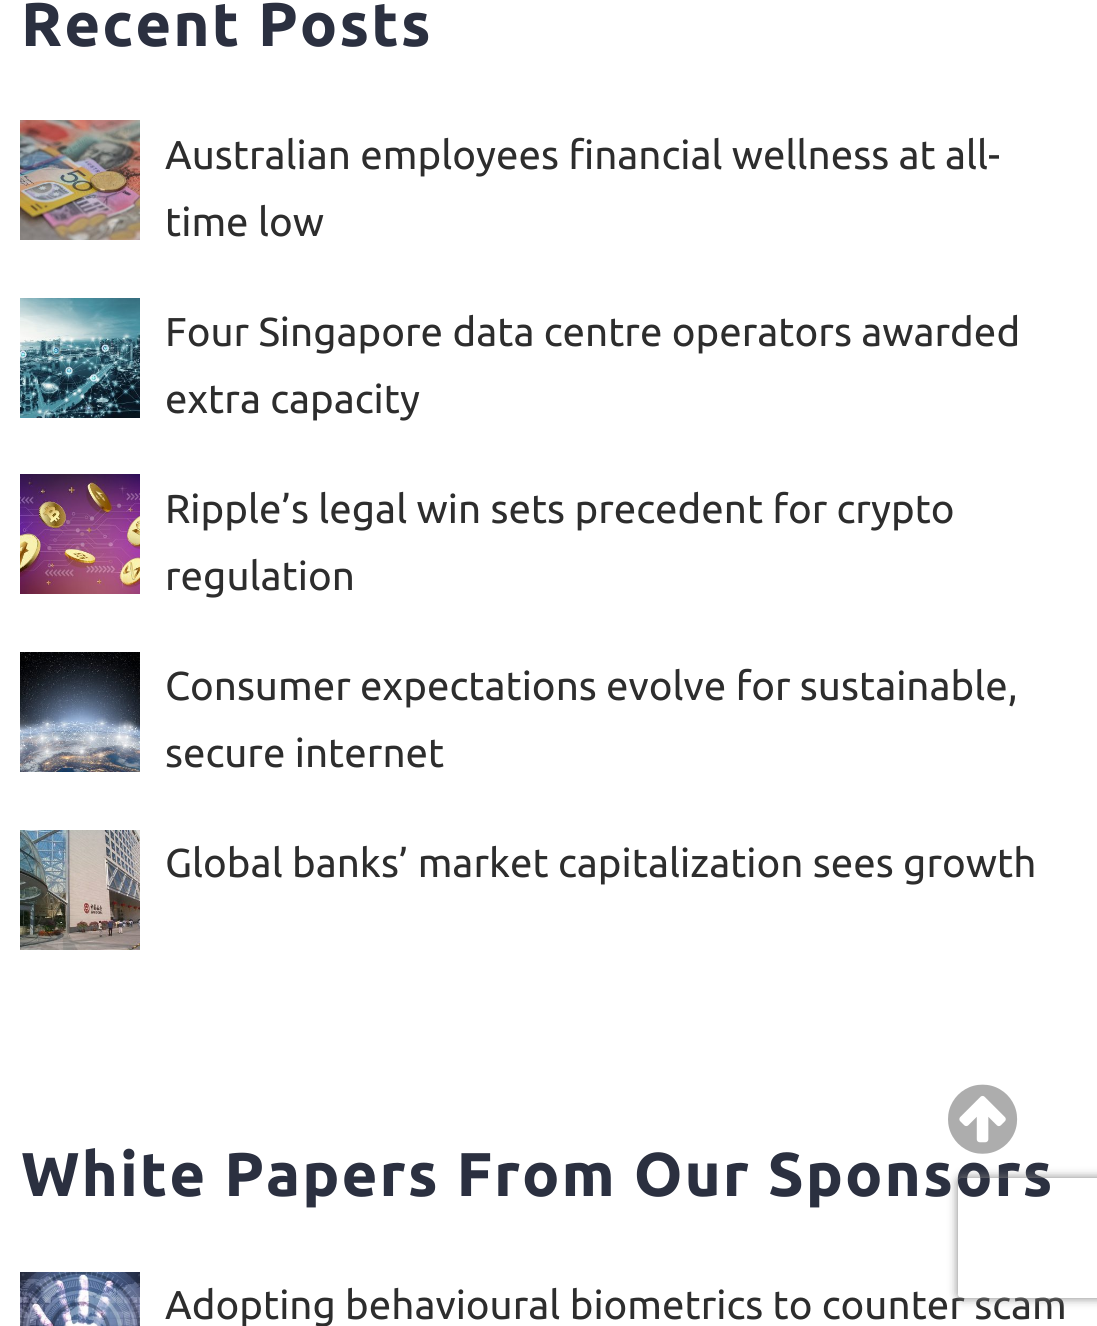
#include <cairo.h>
#include <math.h>
#include <stddef.h>

typedef struct { const char *family; double size; int italic, bold; unsigned color; } style_t;
static cairo_t *ctx;

static void ink(unsigned color) {
    cairo_set_source_rgb(ctx, (color >> 16) / 255.0, (color >> 8 & 255) / 255.0, (color & 255) / 255.0);
}

static void write(double x, double y, const char *s, const style_t *st) {
    cairo_select_font_face(ctx, st->family, st->italic ? CAIRO_FONT_SLANT_ITALIC : CAIRO_FONT_SLANT_NORMAL,
        st->bold ? CAIRO_FONT_WEIGHT_BOLD : CAIRO_FONT_WEIGHT_NORMAL);
    cairo_set_font_size(ctx, st->size);
    ink(st->color);
    cairo_move_to(ctx, x, y);
    cairo_show_text(ctx, s);
}

static void write_spaced(double x, double y, const char *s, double letter, double word) {
    cairo_move_to(ctx, x, y);
    while (*s) {
        char ch[5] = {0};
        int n = 0;
        do ch[n++] = *s++; while ((*s & 0xC0) == 0x80);
        cairo_show_text(ctx, ch);
        cairo_rel_move_to(ctx, letter + word * (*ch == ' '), 0);
    }
}

static void round_path(double x, double y, double w, double h, double r) {
    cairo_new_sub_path(ctx);
    cairo_arc(ctx, x + w - r, y + h - r, r, 0, M_PI / 2);
    cairo_arc(ctx, x + r, y + h - r, r, M_PI / 2, M_PI);
    cairo_arc(ctx, x + r, y + r, r, M_PI, 1.5 * M_PI);
    cairo_arc(ctx, x + w - r, y + r, r, 1.5 * M_PI, 2 * M_PI);
    cairo_close_path(ctx);
}

static void blur_box(double x, double y, double w, double h, double r, double blur, double alpha) {
    cairo_push_group_with_content(ctx, CAIRO_CONTENT_ALPHA);
    cairo_set_operator(ctx, CAIRO_OPERATOR_SOURCE);
    for (int i = 15; i >= -15 && fmin(w, h) + blur * i / 3 > 0; i -= 2) {
        double e = blur * i / 6;
        cairo_set_source_rgba(ctx, 0, 0, 0, alpha * erfc((i - 1) / 8.5) / 2);
        round_path(x - e, y - e, w + 2 * e, h + 2 * e, fmax(0, fmin(r + e + blur * .6, fmin(w, h) / 2 + e)));
        cairo_fill(ctx);
    }
    cairo_pattern_t *soft = cairo_pop_group(ctx);
    cairo_mask(ctx, soft);
    cairo_pattern_destroy(soft);
}

static void paste(const char *path, double x, double y, double w, double h) {
    cairo_surface_t *image = cairo_image_surface_create_from_png(path);
    cairo_save(ctx);
    cairo_set_source_surface(ctx, image, x, y);
    cairo_rectangle(ctx, x, y, w, h);
    cairo_fill(ctx);
    cairo_restore(ctx);
    cairo_surface_destroy(image);
}

static const style_t s1 = {"Ubuntu", 40.3, 0, 0, 0x2d2d2d};

int main(void) {
    cairo_surface_t *surface = cairo_image_surface_create(CAIRO_FORMAT_RGB24, 1097, 1326);
    ctx = cairo_create(surface);
    cairo_font_options_t *options = cairo_font_options_create();
    cairo_font_options_set_hint_metrics(options, CAIRO_HINT_METRICS_OFF);
    cairo_font_options_set_hint_style(options, CAIRO_HINT_STYLE_NONE);
    cairo_set_font_options(ctx, options);
    cairo_set_miter_limit(ctx, 4);
    ink(0xffffff);
    cairo_paint(ctx);
    cairo_select_font_face(ctx, "Ubuntu", CAIRO_FONT_SLANT_NORMAL, CAIRO_FONT_WEIGHT_BOLD);
    cairo_set_font_size(ctx, 61.8);
    ink(0x2b3040);
    write_spaced(21, 46, "Recent Posts", 2, 0);
    paste("pic1.png", 20, 120, 120, 120);
    write(165, 169, "Australian employees financial wellness at all-", &s1);
    write(165, 236, "time low", &s1);
    paste("pic2.png", 20, 298, 120, 120);
    write(165, 346, "Four Singapore data centre operators awarded", &s1);
    write(165, 413, "extra capacity", &s1);
    paste("pic3.png", 20, 474, 120, 120);
    write(165, 523, "Ripple’s legal win sets precedent for crypto", &s1);
    write(165, 590, "regulation", &s1);
    paste("pic4.png", 20, 652, 120, 120);
    write(165, 700, "Consumer expectations evolve for sustainable,", &s1);
    write(165, 767, "secure internet", &s1);
    paste("pic5.png", 20, 830, 120, 120);
    write(165, 877, "Global banks’ market capitalization sees growth", &s1);
    cairo_select_font_face(ctx, "Ubuntu", CAIRO_FONT_SLANT_NORMAL, CAIRO_FONT_WEIGHT_BOLD);
    cairo_set_font_size(ctx, 61.8);
    ink(0x2b3040);
    write_spaced(21, 1196, "White Papers From Our Sponsors", 2, 0);
    paste("pic6.png", 20, 1272, 120, 54);
    write(165, 1319, "Adopting behavioural biometrics to counter scam", &s1);
    paste("pic7.png", 948, 1084, 70, 70);
    cairo_save(ctx);
    cairo_set_fill_rule(ctx, CAIRO_FILL_RULE_EVEN_ODD);
    cairo_new_path(ctx);
    cairo_move_to(ctx, 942, 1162);
    cairo_line_to(ctx, 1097, 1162);
    cairo_line_to(ctx, 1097, 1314);
    cairo_line_to(ctx, 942, 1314);
    cairo_close_path(ctx);
    cairo_move_to(ctx, 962, 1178);
    cairo_line_to(ctx, 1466, 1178);
    cairo_curve_to(ctx, 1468, 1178, 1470, 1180, 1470, 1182);
    cairo_line_to(ctx, 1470, 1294);
    cairo_curve_to(ctx, 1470, 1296, 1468, 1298, 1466, 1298);
    cairo_line_to(ctx, 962, 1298);
    cairo_curve_to(ctx, 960, 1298, 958, 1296, 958, 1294);
    cairo_line_to(ctx, 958, 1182);
    cairo_curve_to(ctx, 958, 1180, 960, 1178, 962, 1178);
    cairo_close_path(ctx);
    cairo_clip(ctx);
    ink(0x808080);
    blur_box(958, 1178, 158, 120, 4, 5, 1);
    cairo_restore(ctx);
    cairo_surface_write_to_png(surface, "screenshot.png");
    cairo_font_options_destroy(options);
    cairo_destroy(ctx);
    cairo_surface_destroy(surface);
    return 0;
}
